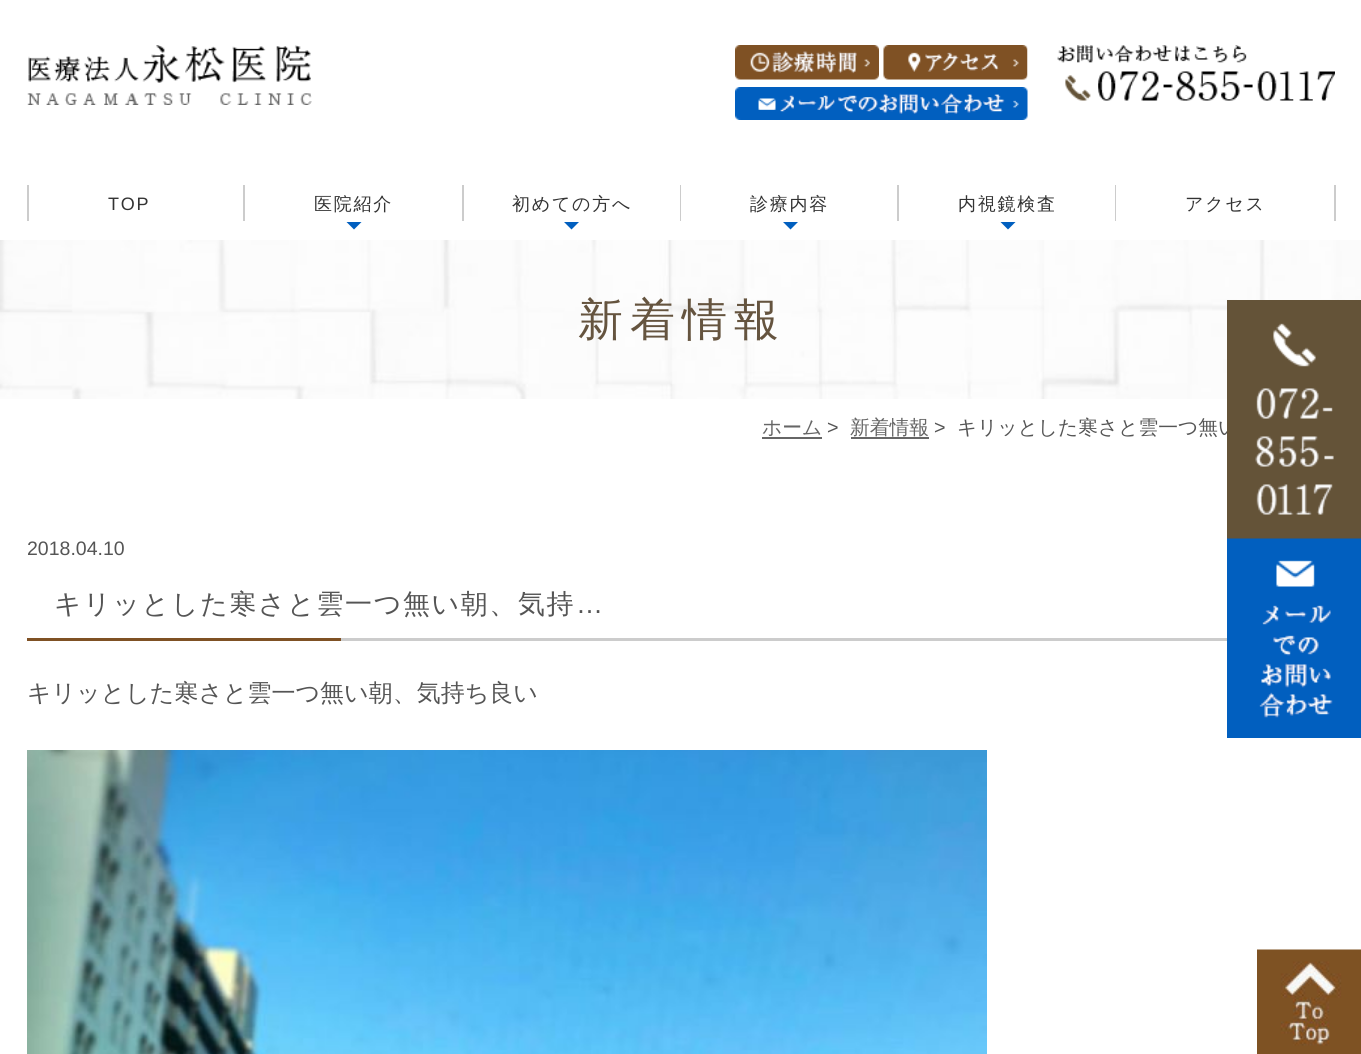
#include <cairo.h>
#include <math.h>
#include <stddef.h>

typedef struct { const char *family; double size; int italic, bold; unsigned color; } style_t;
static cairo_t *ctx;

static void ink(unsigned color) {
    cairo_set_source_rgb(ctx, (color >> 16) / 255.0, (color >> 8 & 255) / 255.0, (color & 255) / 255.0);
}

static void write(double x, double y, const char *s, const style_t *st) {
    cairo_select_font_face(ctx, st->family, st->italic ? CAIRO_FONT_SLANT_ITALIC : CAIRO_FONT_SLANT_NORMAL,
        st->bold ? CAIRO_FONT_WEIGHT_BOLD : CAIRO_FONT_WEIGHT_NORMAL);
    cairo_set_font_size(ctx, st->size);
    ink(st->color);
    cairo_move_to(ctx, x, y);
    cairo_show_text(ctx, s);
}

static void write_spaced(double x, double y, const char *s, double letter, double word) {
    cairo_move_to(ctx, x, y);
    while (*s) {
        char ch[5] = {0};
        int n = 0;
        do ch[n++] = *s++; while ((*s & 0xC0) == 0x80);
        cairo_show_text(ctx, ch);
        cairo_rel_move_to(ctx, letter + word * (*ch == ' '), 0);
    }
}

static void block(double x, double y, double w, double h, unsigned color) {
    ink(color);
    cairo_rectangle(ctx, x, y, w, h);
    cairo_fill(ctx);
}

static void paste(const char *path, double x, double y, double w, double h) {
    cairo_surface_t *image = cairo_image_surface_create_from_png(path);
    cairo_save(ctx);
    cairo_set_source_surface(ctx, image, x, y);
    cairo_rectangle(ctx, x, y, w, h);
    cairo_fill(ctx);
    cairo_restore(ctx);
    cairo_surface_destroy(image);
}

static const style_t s1 = {"WenQuanYi Zen Hei Medium", 19.75, 0, 0, 0x666666};
static const style_t s2 = {"Liberation Sans", 19.75, 0, 0, 0x555555};
static const style_t s3 = {"WenQuanYi Zen Hei Medium", 19.75, 0, 0, 0x555555};
static const style_t s4 = {"Liberation Sans", 19.5, 0, 0, 0x555555};
static const style_t s5 = {"WenQuanYi Zen Hei Medium", 24, 0, 0, 0x555555};

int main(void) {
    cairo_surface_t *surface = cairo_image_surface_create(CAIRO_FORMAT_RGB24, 1361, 1054);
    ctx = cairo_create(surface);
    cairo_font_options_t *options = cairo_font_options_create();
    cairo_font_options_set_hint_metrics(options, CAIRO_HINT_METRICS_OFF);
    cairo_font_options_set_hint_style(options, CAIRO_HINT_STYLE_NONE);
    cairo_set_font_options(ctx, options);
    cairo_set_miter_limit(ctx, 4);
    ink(0xffffff);
    cairo_paint(ctx);
    paste("pic1.png", 27, 45, 285, 60);
    paste("pic2.png", 735, 45, 144, 35);
    paste("pic3.png", 883, 45, 145, 35);
    paste("pic4.png", 735, 87, 293, 33);
    paste("pic5.png", 1057, 45, 278, 56);
    block(27, 185, 2, 36, 0xcccccc);
    cairo_select_font_face(ctx, "Liberation Sans", CAIRO_FONT_SLANT_NORMAL, CAIRO_FONT_WEIGHT_NORMAL);
    cairo_set_font_size(ctx, 18);
    ink(0x333333);
    write_spaced(108, 210, "TOP", 1.75, 0);
    block(243, 185, 2, 36, 0xcccccc);
    cairo_select_font_face(ctx, "WenQuanYi Zen Hei Medium", CAIRO_FONT_SLANT_NORMAL, CAIRO_FONT_WEIGHT_NORMAL);
    ink(0x333333);
    write_spaced(314, 210, "医院紹介", 1.75, 0);
    block(462, 185, 2, 36, 0xcccccc);
    ink(0x015fbf);
    cairo_new_path(ctx);
    cairo_move_to(ctx, 346.5, 222);
    cairo_line_to(ctx, 361.5, 222);
    cairo_line_to(ctx, 354, 229.5);
    cairo_close_path(ctx);
    cairo_fill(ctx);
    ink(0x333333);
    write_spaced(512, 210, "初めての方へ", 1.75, 0);
    block(680, 185, 1, 36, 0xcccccc);
    ink(0x015fbf);
    cairo_new_path(ctx);
    cairo_move_to(ctx, 564, 222);
    cairo_line_to(ctx, 579, 222);
    cairo_line_to(ctx, 571.5, 229.5);
    cairo_close_path(ctx);
    cairo_fill(ctx);
    ink(0x333333);
    write_spaced(750, 210, "診療内容", 1.75, 0);
    block(897, 185, 2, 36, 0xcccccc);
    ink(0x015fbf);
    cairo_new_path(ctx);
    cairo_move_to(ctx, 783, 222);
    cairo_line_to(ctx, 798, 222);
    cairo_line_to(ctx, 790.5, 229.5);
    cairo_close_path(ctx);
    cairo_fill(ctx);
    ink(0x333333);
    write_spaced(958, 210, "内視鏡検査", 1.75, 0);
    block(1115, 185, 1, 36, 0xcccccc);
    ink(0x015fbf);
    cairo_new_path(ctx);
    cairo_move_to(ctx, 1000.5, 222);
    cairo_line_to(ctx, 1015.5, 222);
    cairo_line_to(ctx, 1008, 229.5);
    cairo_close_path(ctx);
    cairo_fill(ctx);
    ink(0x333333);
    write_spaced(1185, 210, "アクセス", 1.75, 0);
    block(1334, 185, 2, 36, 0xcccccc);
    paste("pic6.png", 0, 240, 1361, 159);
    cairo_set_font_size(ctx, 45);
    ink(0x65543f);
    write_spaced(578, 335, "新着情報", 7, 0);
    write(762, 434, "ホーム", &s1);
    block(762, 437, 60, 2, 0x666666);
    write(827, 434, ">", &s2);
    write(850, 434, "新着情報", &s1);
    block(851, 437, 78, 2, 0x666666);
    write(934, 434, ">", &s2);
    write(957, 434, "キリッとした寒さと雲一つ無い", &s3);
    write(27, 555, "2018.04.10", &s4);
    cairo_select_font_face(ctx, "WenQuanYi Zen Hei Medium", CAIRO_FONT_SLANT_NORMAL, CAIRO_FONT_WEIGHT_NORMAL);
    cairo_set_font_size(ctx, 27);
    write_spaced(54, 613, "キリッとした寒さと雲一つ無い朝、気持", 1.6, 0);
    cairo_select_font_face(ctx, "Liberation Sans", CAIRO_FONT_SLANT_NORMAL, CAIRO_FONT_WEIGHT_NORMAL);
    write_spaced(576, 613, "…", 1.6, 0);
    block(27, 638, 314, 3, 0x7f5124);
    block(341, 638, 886, 3, 0xcccccc);
    write(27, 701, "キリッとした寒さと雲一つ無い朝、気持ち良い", &s5);
    paste("pic7.png", 27, 750, 960, 304);
    paste("pic8.png", 1227, 300, 134, 239);
    paste("pic9.png", 1227, 538, 134, 200);
    paste("pic10.png", 1257, 949, 104, 105);
    cairo_surface_write_to_png(surface, "screenshot.png");
    cairo_font_options_destroy(options);
    cairo_destroy(ctx);
    cairo_surface_destroy(surface);
    return 0;
}
